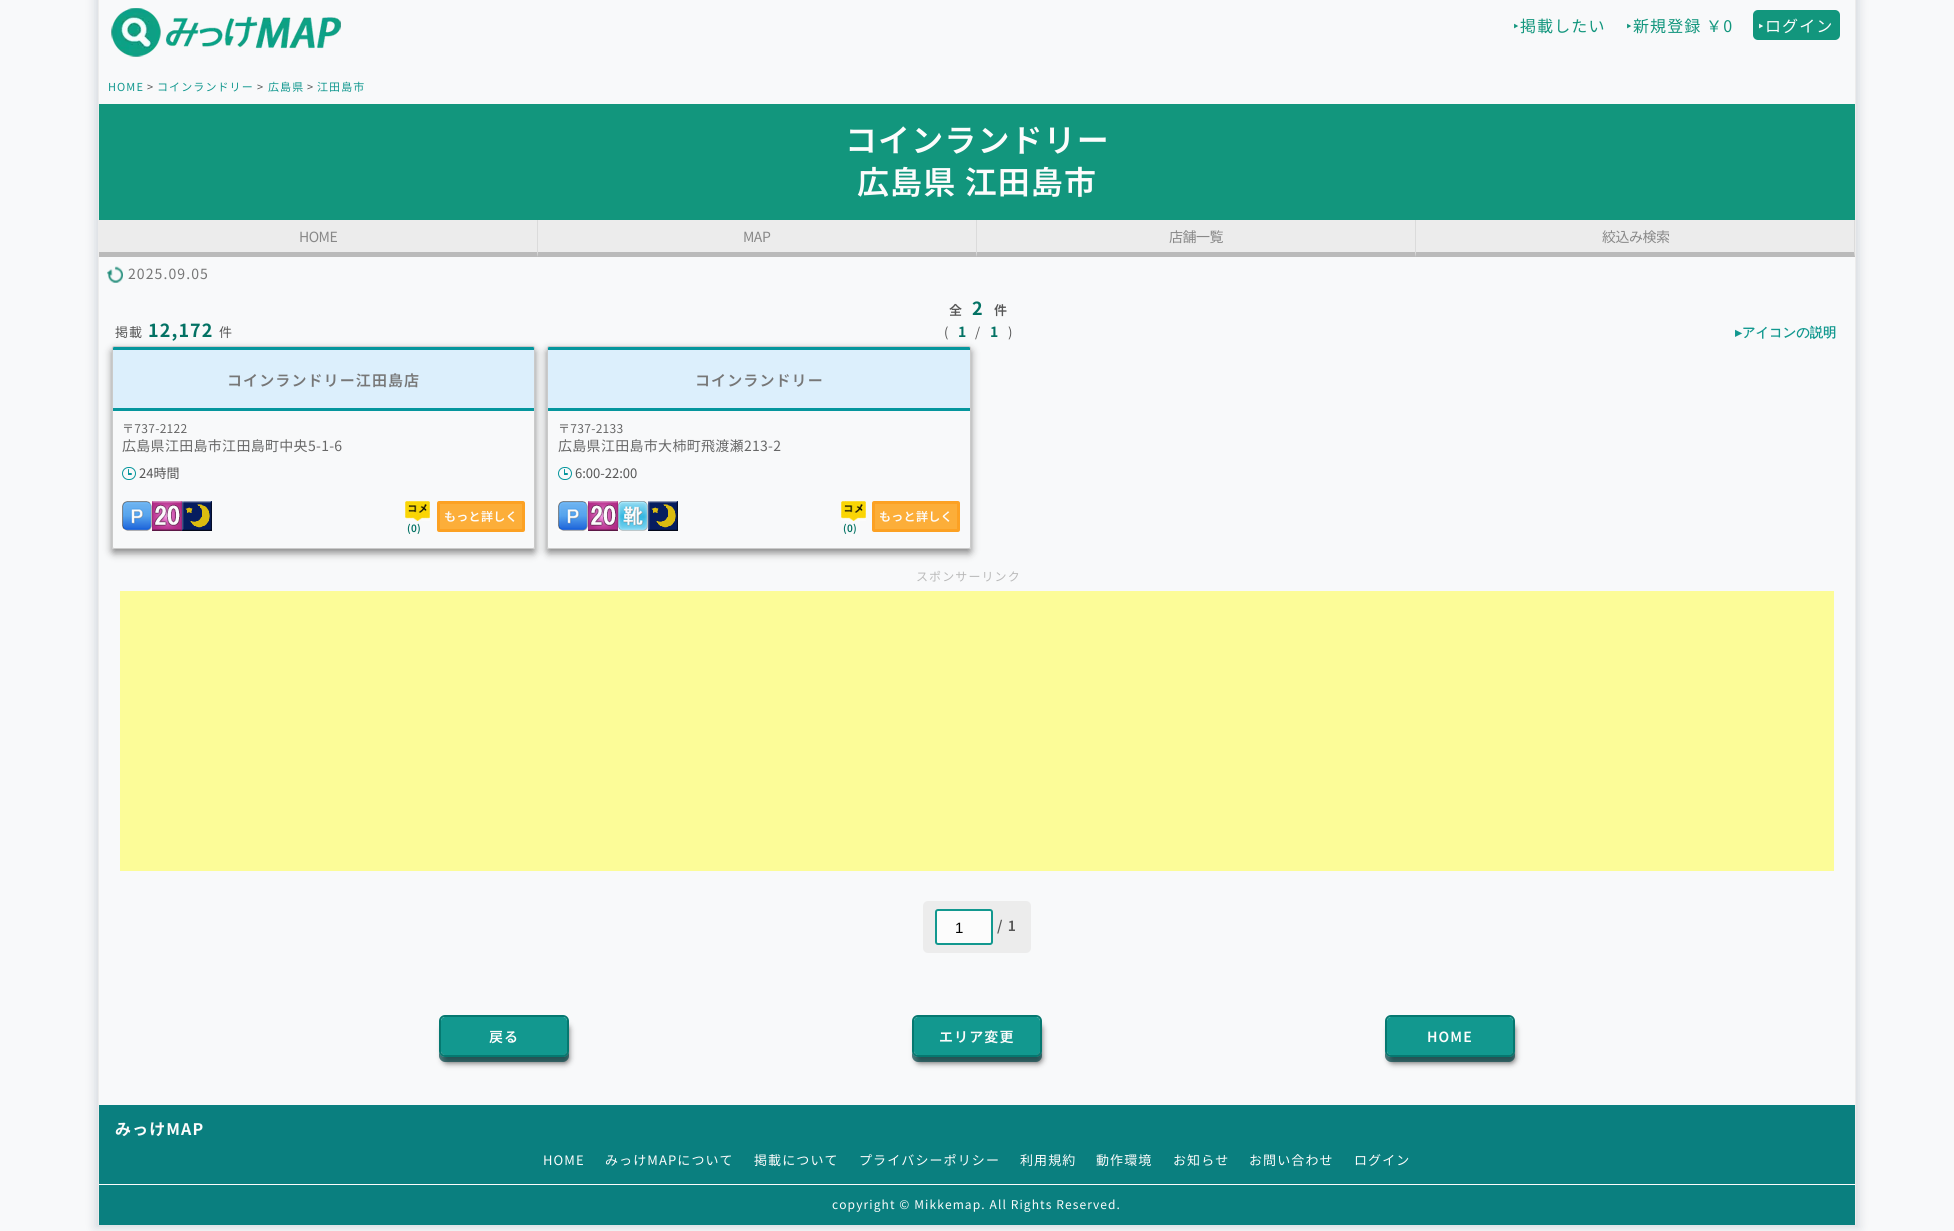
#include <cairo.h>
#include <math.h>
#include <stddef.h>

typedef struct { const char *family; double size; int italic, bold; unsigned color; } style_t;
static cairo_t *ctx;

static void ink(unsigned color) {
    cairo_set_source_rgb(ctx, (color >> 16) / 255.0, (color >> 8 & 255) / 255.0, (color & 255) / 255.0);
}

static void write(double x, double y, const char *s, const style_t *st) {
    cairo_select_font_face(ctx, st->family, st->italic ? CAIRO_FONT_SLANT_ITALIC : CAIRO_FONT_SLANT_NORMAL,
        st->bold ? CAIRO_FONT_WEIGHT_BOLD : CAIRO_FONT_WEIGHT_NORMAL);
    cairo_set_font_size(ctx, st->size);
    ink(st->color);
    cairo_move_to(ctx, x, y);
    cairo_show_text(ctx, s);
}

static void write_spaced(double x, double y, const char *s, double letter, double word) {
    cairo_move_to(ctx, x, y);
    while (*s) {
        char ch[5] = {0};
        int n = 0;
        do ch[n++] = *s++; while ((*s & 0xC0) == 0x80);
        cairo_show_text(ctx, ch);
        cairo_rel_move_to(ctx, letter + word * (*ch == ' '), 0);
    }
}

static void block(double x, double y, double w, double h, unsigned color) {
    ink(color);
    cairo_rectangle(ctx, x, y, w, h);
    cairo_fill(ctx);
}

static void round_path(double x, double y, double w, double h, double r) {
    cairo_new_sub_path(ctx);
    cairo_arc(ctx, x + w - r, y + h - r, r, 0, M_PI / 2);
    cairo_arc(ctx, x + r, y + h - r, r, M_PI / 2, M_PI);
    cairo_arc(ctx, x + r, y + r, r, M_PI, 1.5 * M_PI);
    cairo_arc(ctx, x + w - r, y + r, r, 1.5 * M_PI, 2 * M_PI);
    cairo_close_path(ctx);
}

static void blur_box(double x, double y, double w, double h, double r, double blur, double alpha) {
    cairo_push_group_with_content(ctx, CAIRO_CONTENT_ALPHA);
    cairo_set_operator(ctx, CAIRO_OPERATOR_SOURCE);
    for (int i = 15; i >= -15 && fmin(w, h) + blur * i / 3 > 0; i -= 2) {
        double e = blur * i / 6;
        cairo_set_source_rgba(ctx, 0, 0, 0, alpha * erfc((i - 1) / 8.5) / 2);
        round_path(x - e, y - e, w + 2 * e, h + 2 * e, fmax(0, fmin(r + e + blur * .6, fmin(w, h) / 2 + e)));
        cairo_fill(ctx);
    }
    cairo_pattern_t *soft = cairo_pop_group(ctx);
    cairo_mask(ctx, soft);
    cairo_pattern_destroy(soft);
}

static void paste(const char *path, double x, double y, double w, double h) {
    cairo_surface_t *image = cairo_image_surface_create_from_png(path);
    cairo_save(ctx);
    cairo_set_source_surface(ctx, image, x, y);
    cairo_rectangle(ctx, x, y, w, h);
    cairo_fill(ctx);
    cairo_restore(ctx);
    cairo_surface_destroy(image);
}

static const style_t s1 = {"DejaVu Sans", 13.25, 0, 1, 0x12988f};
static const style_t s2 = {"WenQuanYi Zen Hei", 13.25, 0, 1, 0x12988f};
static const style_t s3 = {"Noto Sans JP", 13, 0, 0, 0x565656};
static const style_t s4 = {"Liberation Sans", 15, 0, 0, 0x030303};

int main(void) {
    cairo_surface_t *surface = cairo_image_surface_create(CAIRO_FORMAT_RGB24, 1954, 1231);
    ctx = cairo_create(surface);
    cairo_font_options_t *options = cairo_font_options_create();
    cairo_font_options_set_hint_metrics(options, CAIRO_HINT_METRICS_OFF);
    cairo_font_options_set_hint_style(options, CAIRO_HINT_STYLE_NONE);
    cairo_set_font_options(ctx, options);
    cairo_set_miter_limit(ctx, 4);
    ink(0xf8f9fa);
    cairo_paint(ctx);
    cairo_save(ctx);
    cairo_set_fill_rule(ctx, CAIRO_FILL_RULE_EVEN_ODD);
    cairo_new_path(ctx);
    cairo_move_to(ctx, 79, 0);
    cairo_line_to(ctx, 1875, 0);
    cairo_line_to(ctx, 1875, 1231);
    cairo_line_to(ctx, 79, 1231);
    cairo_close_path(ctx);
    cairo_move_to(ctx, 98, 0);
    cairo_line_to(ctx, 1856, 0);
    cairo_line_to(ctx, 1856, 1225);
    cairo_line_to(ctx, 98, 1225);
    cairo_close_path(ctx);
    cairo_clip(ctx);
    ink(0x8692a0);
    blur_box(95, -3, 1764, 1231, 0, 5, 0.3);
    cairo_restore(ctx);
    block(1855, 0, 1, 1225, 0xececec);
    block(98, 0, 1, 1225, 0xececec);
    paste("pic1.png", 111, 8, 230, 49);
    cairo_select_font_face(ctx, "Noto Sans", CAIRO_FONT_SLANT_NORMAL, CAIRO_FONT_WEIGHT_NORMAL);
    cairo_set_font_size(ctx, 16);
    ink(0x12967d);
    write_spaced(1513, 32, "‣", 1.1, 0);
    cairo_select_font_face(ctx, "Noto Sans JP", CAIRO_FONT_SLANT_NORMAL, CAIRO_FONT_WEIGHT_NORMAL);
    write_spaced(1520, 32, "掲載したい", 1.1, 0);
    cairo_select_font_face(ctx, "Noto Sans", CAIRO_FONT_SLANT_NORMAL, CAIRO_FONT_WEIGHT_NORMAL);
    write_spaced(1626, 32, "‣", 1.1, 0);
    cairo_select_font_face(ctx, "Noto Sans JP", CAIRO_FONT_SLANT_NORMAL, CAIRO_FONT_WEIGHT_NORMAL);
    write_spaced(1633, 32, "新規登録 ￥0", 1.1, 0);
    round_path(1753, 10, 87, 30, 5);
    cairo_fill(ctx);
    cairo_select_font_face(ctx, "Noto Sans", CAIRO_FONT_SLANT_NORMAL, CAIRO_FONT_WEIGHT_NORMAL);
    ink(0xfcfcfc);
    write_spaced(1758, 32, "‣", 1.1, 0);
    cairo_select_font_face(ctx, "Noto Sans JP", CAIRO_FONT_SLANT_NORMAL, CAIRO_FONT_WEIGHT_NORMAL);
    write_spaced(1765, 32, "ログイン", 1.1, 0);
    cairo_set_font_size(ctx, 11);
    ink(0x12988f);
    write_spaced(108, 91, "HOME", 1.1, 0);
    ink(0x565656);
    write_spaced(147, 91, ">", 1.1, 0);
    ink(0x12988f);
    write_spaced(157, 91, "コインランドリー", 1.1, 0);
    ink(0x565656);
    write_spaced(257, 91, ">", 1.1, 0);
    ink(0x12988f);
    write_spaced(268, 91, "広島県", 1.1, 0);
    ink(0x565656);
    write_spaced(307, 91, ">", 1.1, 0);
    ink(0x12988f);
    write_spaced(317, 91, "江田島市", 1.1, 0);
    block(99, 104, 1756, 116, 0x12967d);
    cairo_select_font_face(ctx, "Noto Sans JP SemiBold", CAIRO_FONT_SLANT_NORMAL, CAIRO_FONT_WEIGHT_NORMAL);
    cairo_set_font_size(ctx, 32);
    ink(0xfcfcfc);
    write_spaced(845, 152, "コインランドリー", 1.1, 0);
    write_spaced(857, 194, "広島県 江田島市", 1.1, 0);
    block(99, 220, 1756, 37, 0xececec);
    ink(0xdbdbdb);
    cairo_new_path(ctx);
    cairo_move_to(ctx, 538, 220);
    cairo_line_to(ctx, 538, 257);
    cairo_line_to(ctx, 537, 252);
    cairo_line_to(ctx, 537, 220);
    cairo_close_path(ctx);
    cairo_fill(ctx);
    ink(0xbababa);
    cairo_new_path(ctx);
    cairo_move_to(ctx, 538, 257);
    cairo_line_to(ctx, 99, 257);
    cairo_line_to(ctx, 99, 252);
    cairo_line_to(ctx, 537, 252);
    cairo_close_path(ctx);
    cairo_fill(ctx);
    cairo_select_font_face(ctx, "Noto Sans JP", CAIRO_FONT_SLANT_NORMAL, CAIRO_FONT_WEIGHT_NORMAL);
    cairo_set_font_size(ctx, 14);
    ink(0x888888);
    write_spaced(299, 242, "HOME", -0.5, 0);
    ink(0xdbdbdb);
    cairo_new_path(ctx);
    cairo_move_to(ctx, 977, 220);
    cairo_line_to(ctx, 977, 257);
    cairo_line_to(ctx, 976, 252);
    cairo_line_to(ctx, 976, 220);
    cairo_close_path(ctx);
    cairo_fill(ctx);
    ink(0xbababa);
    cairo_new_path(ctx);
    cairo_move_to(ctx, 977, 257);
    cairo_line_to(ctx, 538, 257);
    cairo_line_to(ctx, 538, 252);
    cairo_line_to(ctx, 976, 252);
    cairo_close_path(ctx);
    cairo_fill(ctx);
    ink(0x888888);
    write_spaced(743, 242, "MAP", -0.5, 0);
    ink(0xdbdbdb);
    cairo_new_path(ctx);
    cairo_move_to(ctx, 1416, 220);
    cairo_line_to(ctx, 1416, 257);
    cairo_line_to(ctx, 1415, 252);
    cairo_line_to(ctx, 1415, 220);
    cairo_close_path(ctx);
    cairo_fill(ctx);
    ink(0xbababa);
    cairo_new_path(ctx);
    cairo_move_to(ctx, 1416, 257);
    cairo_line_to(ctx, 977, 257);
    cairo_line_to(ctx, 977, 252);
    cairo_line_to(ctx, 1415, 252);
    cairo_close_path(ctx);
    cairo_fill(ctx);
    ink(0x888888);
    write_spaced(1169, 242, "店舗一覧", -0.5, 0);
    ink(0xdbdbdb);
    cairo_new_path(ctx);
    cairo_move_to(ctx, 1855, 220);
    cairo_line_to(ctx, 1855, 257);
    cairo_line_to(ctx, 1854, 252);
    cairo_line_to(ctx, 1854, 220);
    cairo_close_path(ctx);
    cairo_fill(ctx);
    ink(0xbababa);
    cairo_new_path(ctx);
    cairo_move_to(ctx, 1855, 257);
    cairo_line_to(ctx, 1416, 257);
    cairo_line_to(ctx, 1416, 252);
    cairo_line_to(ctx, 1854, 252);
    cairo_close_path(ctx);
    cairo_fill(ctx);
    ink(0x888888);
    write_spaced(1602, 242, "絞込み検索", -0.5, 0);
    paste("pic2.png", 107, 266, 16, 17);
    ink(0x777777);
    write_spaced(128, 279, "2025.09.05", 1.1, 0);
    cairo_set_font_size(ctx, 13);
    ink(0x565656);
    write_spaced(115, 337, "掲載", 1.1, 0);
    cairo_select_font_face(ctx, "Noto Sans JP", CAIRO_FONT_SLANT_NORMAL, CAIRO_FONT_WEIGHT_BOLD);
    cairo_set_font_size(ctx, 18);
    ink(0x037264);
    write_spaced(148, 337, "12,172", 1.1, 0);
    cairo_select_font_face(ctx, "Noto Sans JP", CAIRO_FONT_SLANT_NORMAL, CAIRO_FONT_WEIGHT_NORMAL);
    cairo_set_font_size(ctx, 13);
    ink(0x565656);
    write_spaced(219, 337, "件", 1.1, 0);
    cairo_select_font_face(ctx, "Noto Sans JP SemiBold", CAIRO_FONT_SLANT_NORMAL, CAIRO_FONT_WEIGHT_NORMAL);
    write_spaced(949, 315, "全", 1.1, 0);
    cairo_select_font_face(ctx, "Noto Sans JP", CAIRO_FONT_SLANT_NORMAL, CAIRO_FONT_WEIGHT_BOLD);
    cairo_set_font_size(ctx, 18);
    ink(0x037264);
    write_spaced(972, 315, "2", 1.1, 0);
    cairo_select_font_face(ctx, "Noto Sans JP SemiBold", CAIRO_FONT_SLANT_NORMAL, CAIRO_FONT_WEIGHT_NORMAL);
    cairo_set_font_size(ctx, 13);
    ink(0x565656);
    write_spaced(994, 315, "件", 1.1, 0);
    cairo_select_font_face(ctx, "Noto Sans JP", CAIRO_FONT_SLANT_NORMAL, CAIRO_FONT_WEIGHT_NORMAL);
    write_spaced(944, 337, "(", 1.1, 0);
    cairo_select_font_face(ctx, "Noto Sans JP", CAIRO_FONT_SLANT_NORMAL, CAIRO_FONT_WEIGHT_BOLD);
    cairo_set_font_size(ctx, 14);
    ink(0x037264);
    write_spaced(958, 337, "1", 1.1, 0);
    cairo_select_font_face(ctx, "Noto Sans JP", CAIRO_FONT_SLANT_NORMAL, CAIRO_FONT_WEIGHT_NORMAL);
    cairo_set_font_size(ctx, 13);
    ink(0x565656);
    write_spaced(975, 337, "/", 1.1, 0);
    cairo_select_font_face(ctx, "Noto Sans JP", CAIRO_FONT_SLANT_NORMAL, CAIRO_FONT_WEIGHT_BOLD);
    cairo_set_font_size(ctx, 14);
    ink(0x037264);
    write_spaced(990, 337, "1", 1.1, 0);
    cairo_select_font_face(ctx, "Noto Sans JP", CAIRO_FONT_SLANT_NORMAL, CAIRO_FONT_WEIGHT_NORMAL);
    cairo_set_font_size(ctx, 13);
    ink(0x565656);
    write_spaced(1008, 337, ")", 1.1, 0);
    write(1735, 337, "▸", &s1);
    write(1742, 337, "アイコンの説明", &s2);
    cairo_save(ctx);
    cairo_set_fill_rule(ctx, CAIRO_FILL_RULE_EVEN_ODD);
    cairo_new_path(ctx);
    cairo_move_to(ctx, 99, 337);
    cairo_line_to(ctx, 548, 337);
    cairo_line_to(ctx, 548, 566);
    cairo_line_to(ctx, 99, 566);
    cairo_close_path(ctx);
    cairo_move_to(ctx, 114, 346);
    cairo_line_to(ctx, 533, 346);
    cairo_curve_to(ctx, 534, 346, 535, 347, 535, 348);
    cairo_line_to(ctx, 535, 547);
    cairo_curve_to(ctx, 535, 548, 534, 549, 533, 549);
    cairo_line_to(ctx, 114, 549);
    cairo_curve_to(ctx, 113, 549, 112, 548, 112, 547);
    cairo_line_to(ctx, 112, 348);
    cairo_curve_to(ctx, 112, 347, 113, 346, 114, 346);
    cairo_close_path(ctx);
    cairo_clip(ctx);
    ink(0x888888);
    blur_box(112, 350, 423, 203, 2, 4, 1);
    cairo_restore(ctx);
    round_path(112.5, 346.5, 422, 202, 1.5);
    ink(0xcacaca);
    cairo_set_line_width(ctx, 1);
    cairo_stroke(ctx);
    ink(0xdceffc);
    cairo_new_path(ctx);
    cairo_move_to(ctx, 114, 347);
    cairo_line_to(ctx, 533, 347);
    cairo_curve_to(ctx, 533.5, 347, 534, 347.5, 534, 348);
    cairo_line_to(ctx, 534, 411);
    cairo_line_to(ctx, 113, 411);
    cairo_line_to(ctx, 113, 348);
    cairo_curve_to(ctx, 113, 347.5, 113.5, 347, 114, 347);
    cairo_close_path(ctx);
    cairo_fill(ctx);
    ink(0x05969d);
    cairo_new_path(ctx);
    cairo_move_to(ctx, 114, 347);
    cairo_line_to(ctx, 533, 347);
    cairo_curve_to(ctx, 533.5, 347, 534, 347.5, 534, 348);
    cairo_line_to(ctx, 534, 350);
    cairo_line_to(ctx, 113, 350);
    cairo_line_to(ctx, 113, 348);
    cairo_curve_to(ctx, 113, 347.5, 113.5, 347, 114, 347);
    cairo_close_path(ctx);
    cairo_fill(ctx);
    block(113, 408, 421, 3, 0x05969d);
    cairo_select_font_face(ctx, "Noto Sans JP SemiBold", CAIRO_FONT_SLANT_NORMAL, CAIRO_FONT_WEIGHT_NORMAL);
    cairo_set_font_size(ctx, 15);
    ink(0x777777);
    write_spaced(227, 386, "コインランドリー江田島店", 1.1, 0);
    cairo_select_font_face(ctx, "Noto Sans JP", CAIRO_FONT_SLANT_NORMAL, CAIRO_FONT_WEIGHT_NORMAL);
    cairo_set_font_size(ctx, 12);
    ink(0x676767);
    write_spaced(122, 433, "〒737-2122", 0.3, 0);
    cairo_set_font_size(ctx, 14);
    write_spaced(122, 451, "広島県江田島市江田島町中央5-1-6", 0.3, 0);
    round_path(122.5, 467.5, 13, 12, 6);
    ink(0x05969d);
    cairo_stroke(ctx);
    round_path(128, 469, 1, 6, 0.5);
    cairo_fill(ctx);
    round_path(128, 473, 4, 2, 1);
    cairo_fill(ctx);
    write(139, 478, "24時間", &s3);
    paste("pic3.png", 122, 501, 30, 30);
    paste("pic4.png", 152, 501, 30, 30);
    paste("pic5.png", 182, 501, 30, 30);
    round_path(438.5, 502.5, 85, 28, 0.5);
    ink(0xfca123);
    cairo_set_line_width(ctx, 3);
    cairo_stroke(ctx);
    block(440, 504, 82, 25, 0xfcae39);
    cairo_select_font_face(ctx, "Noto Sans JP SemiBold", CAIRO_FONT_SLANT_NORMAL, CAIRO_FONT_WEIGHT_NORMAL);
    cairo_set_font_size(ctx, 12);
    ink(0xfcfcfc);
    write_spaced(444, 521, "もっと詳しく", 0.3, 0);
    paste("pic6.png", 405, 501, 25, 20);
    cairo_set_font_size(ctx, 10);
    ink(0x037264);
    write_spaced(407, 532, "( 0 )", -1, 0);
    cairo_save(ctx);
    cairo_set_fill_rule(ctx, CAIRO_FILL_RULE_EVEN_ODD);
    cairo_new_path(ctx);
    cairo_move_to(ctx, 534, 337);
    cairo_line_to(ctx, 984, 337);
    cairo_line_to(ctx, 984, 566);
    cairo_line_to(ctx, 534, 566);
    cairo_close_path(ctx);
    cairo_move_to(ctx, 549, 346);
    cairo_line_to(ctx, 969, 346);
    cairo_curve_to(ctx, 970, 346, 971, 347, 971, 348);
    cairo_line_to(ctx, 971, 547);
    cairo_curve_to(ctx, 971, 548, 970, 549, 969, 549);
    cairo_line_to(ctx, 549, 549);
    cairo_curve_to(ctx, 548, 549, 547, 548, 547, 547);
    cairo_line_to(ctx, 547, 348);
    cairo_curve_to(ctx, 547, 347, 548, 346, 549, 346);
    cairo_close_path(ctx);
    cairo_clip(ctx);
    ink(0x888888);
    blur_box(547, 350, 424, 203, 2, 4, 1);
    cairo_restore(ctx);
    round_path(547.5, 346.5, 423, 202, 1.5);
    ink(0xcacaca);
    cairo_set_line_width(ctx, 1);
    cairo_stroke(ctx);
    ink(0xdceffc);
    cairo_new_path(ctx);
    cairo_move_to(ctx, 549, 347);
    cairo_line_to(ctx, 969, 347);
    cairo_curve_to(ctx, 969.5, 347, 970, 347.5, 970, 348);
    cairo_line_to(ctx, 970, 411);
    cairo_line_to(ctx, 548, 411);
    cairo_line_to(ctx, 548, 348);
    cairo_curve_to(ctx, 548, 347.5, 548.5, 347, 549, 347);
    cairo_close_path(ctx);
    cairo_fill(ctx);
    ink(0x05969d);
    cairo_new_path(ctx);
    cairo_move_to(ctx, 549, 347);
    cairo_line_to(ctx, 969, 347);
    cairo_curve_to(ctx, 969.5, 347, 970, 347.5, 970, 348);
    cairo_line_to(ctx, 970, 350);
    cairo_line_to(ctx, 548, 350);
    cairo_line_to(ctx, 548, 348);
    cairo_curve_to(ctx, 548, 347.5, 548.5, 347, 549, 347);
    cairo_close_path(ctx);
    cairo_fill(ctx);
    block(548, 408, 422, 3, 0x05969d);
    cairo_set_font_size(ctx, 15);
    ink(0x777777);
    write_spaced(695, 386, "コインランドリー", 1.1, 0);
    cairo_select_font_face(ctx, "Noto Sans JP", CAIRO_FONT_SLANT_NORMAL, CAIRO_FONT_WEIGHT_NORMAL);
    cairo_set_font_size(ctx, 12);
    ink(0x676767);
    write_spaced(558, 433, "〒737-2133", 0.3, 0);
    cairo_set_font_size(ctx, 14);
    write_spaced(558, 451, "広島県江田島市大柿町飛渡瀬213-2", 0.3, 0);
    round_path(558.5, 467.5, 13, 12, 6);
    ink(0x05969d);
    cairo_stroke(ctx);
    round_path(564, 469, 1, 6, 0.5);
    cairo_fill(ctx);
    round_path(564, 473, 4, 2, 1);
    cairo_fill(ctx);
    write(575, 478, "6:00-22:00", &s3);
    paste("pic3.png", 558, 501, 30, 30);
    paste("pic4.png", 588, 501, 30, 30);
    paste("pic7.png", 618, 501, 30, 30);
    paste("pic5.png", 648, 501, 30, 30);
    round_path(873.5, 502.5, 85, 28, 0.5);
    ink(0xfca123);
    cairo_set_line_width(ctx, 3);
    cairo_stroke(ctx);
    block(875, 504, 82, 25, 0xfcae39);
    cairo_select_font_face(ctx, "Noto Sans JP SemiBold", CAIRO_FONT_SLANT_NORMAL, CAIRO_FONT_WEIGHT_NORMAL);
    cairo_set_font_size(ctx, 12);
    ink(0xfcfcfc);
    write_spaced(879, 521, "もっと詳しく", 0.3, 0);
    paste("pic6.png", 841, 501, 25, 20);
    cairo_set_font_size(ctx, 10);
    ink(0x037264);
    write_spaced(843, 532, "( 0 )", -1, 0);
    cairo_select_font_face(ctx, "Noto Sans JP", CAIRO_FONT_SLANT_NORMAL, CAIRO_FONT_WEIGHT_NORMAL);
    cairo_set_font_size(ctx, 12);
    ink(0xbababa);
    write_spaced(916, 581, "スポンサーリンク", 1.1, 0);
    block(120, 591, 1714, 280, 0xfcfc98);
    ink(0xececec);
    round_path(923, 901, 108, 52, 5);
    cairo_fill(ctx);
    ink(0xfcfcfc);
    round_path(936, 910, 56, 34, 2);
    cairo_fill_preserve(ctx);
    ink(0x12988f);
    cairo_set_line_width(ctx, 2);
    cairo_stroke(ctx);
    write(955, 933, "1", &s4);
    cairo_select_font_face(ctx, "Noto Sans JP SemiBold", CAIRO_FONT_SLANT_NORMAL, CAIRO_FONT_WEIGHT_NORMAL);
    cairo_set_font_size(ctx, 14);
    ink(0x565656);
    write_spaced(997, 931, "/ 1", 1.1, 0);
    ink(0x676767);
    blur_box(443, 1025, 126, 38, 4, 3, 1);
    cairo_set_source_rgba(ctx, 0.031, 0.286, 0.298, 0.7);
    cairo_new_path(ctx);
    cairo_move_to(ctx, 439, 1051);
    cairo_line_to(ctx, 439, 1056);
    cairo_curve_to(ctx, 439, 1059, 442, 1062, 445, 1062);
    cairo_line_to(ctx, 563, 1062);
    cairo_curve_to(ctx, 566, 1062, 569, 1059, 569, 1056);
    cairo_line_to(ctx, 569, 1051);
    cairo_curve_to(ctx, 569, 1054, 566, 1057, 563, 1057);
    cairo_line_to(ctx, 445, 1057);
    cairo_curve_to(ctx, 442, 1057, 439, 1054, 439, 1051);
    cairo_close_path(ctx);
    cairo_fill(ctx);
    round_path(440, 1016, 128, 40, 5);
    ink(0x057870);
    cairo_stroke(ctx);
    ink(0x12988f);
    round_path(441, 1017, 126, 38, 4);
    cairo_fill(ctx);
    ink(0xfcfcfc);
    write_spaced(489, 1042, "戻る", 1.1, 0);
    ink(0x676767);
    blur_box(916, 1025, 126, 38, 4, 3, 1);
    cairo_set_source_rgba(ctx, 0.031, 0.286, 0.298, 0.7);
    cairo_new_path(ctx);
    cairo_move_to(ctx, 912, 1051);
    cairo_line_to(ctx, 912, 1056);
    cairo_curve_to(ctx, 912, 1059, 915, 1062, 918, 1062);
    cairo_line_to(ctx, 1036, 1062);
    cairo_curve_to(ctx, 1039, 1062, 1042, 1059, 1042, 1056);
    cairo_line_to(ctx, 1042, 1051);
    cairo_curve_to(ctx, 1042, 1054, 1039, 1057, 1036, 1057);
    cairo_line_to(ctx, 918, 1057);
    cairo_curve_to(ctx, 915, 1057, 912, 1054, 912, 1051);
    cairo_close_path(ctx);
    cairo_fill(ctx);
    round_path(913, 1016, 128, 40, 5);
    ink(0x057870);
    cairo_stroke(ctx);
    ink(0x12988f);
    round_path(914, 1017, 126, 38, 4);
    cairo_fill(ctx);
    ink(0xfcfcfc);
    write_spaced(939, 1042, "エリア変更", 1.1, 0);
    ink(0x676767);
    blur_box(1389, 1025, 126, 38, 4, 3, 1);
    cairo_set_source_rgba(ctx, 0.031, 0.286, 0.298, 0.7);
    cairo_new_path(ctx);
    cairo_move_to(ctx, 1385, 1051);
    cairo_line_to(ctx, 1385, 1056);
    cairo_curve_to(ctx, 1385, 1059, 1388, 1062, 1391, 1062);
    cairo_line_to(ctx, 1509, 1062);
    cairo_curve_to(ctx, 1512, 1062, 1515, 1059, 1515, 1056);
    cairo_line_to(ctx, 1515, 1051);
    cairo_curve_to(ctx, 1515, 1054, 1512, 1057, 1509, 1057);
    cairo_line_to(ctx, 1391, 1057);
    cairo_curve_to(ctx, 1388, 1057, 1385, 1054, 1385, 1051);
    cairo_close_path(ctx);
    cairo_fill(ctx);
    round_path(1386, 1016, 128, 40, 5);
    ink(0x057870);
    cairo_stroke(ctx);
    ink(0x12988f);
    round_path(1387, 1017, 126, 38, 4);
    cairo_fill(ctx);
    ink(0xfcfcfc);
    write_spaced(1427, 1042, "HOME", 1.1, 0);
    block(99, 1105, 1756, 120, 0x0a7f7f);
    cairo_select_font_face(ctx, "Noto Sans JP", CAIRO_FONT_SLANT_NORMAL, CAIRO_FONT_WEIGHT_BOLD);
    cairo_set_font_size(ctx, 16);
    ink(0xfcfcfc);
    write_spaced(115, 1135, "みっけMAP", 1.1, 0);
    cairo_select_font_face(ctx, "Noto Sans JP", CAIRO_FONT_SLANT_NORMAL, CAIRO_FONT_WEIGHT_NORMAL);
    cairo_set_font_size(ctx, 13);
    write_spaced(543, 1165, "HOME", 1.1, 0);
    write_spaced(605, 1165, "みっけMAPについて", 1.1, 0);
    write_spaced(754, 1165, "掲載について", 1.1, 0);
    write_spaced(859, 1165, "プライバシーポリシー", 1.1, 0);
    write_spaced(1020, 1165, "利用規約", 1.1, 0);
    write_spaced(1096, 1165, "動作環境", 1.1, 0);
    write_spaced(1173, 1165, "お知らせ", 1.1, 0);
    write_spaced(1249, 1165, "お問い合わせ", 1.1, 0);
    write_spaced(1354, 1165, "ログイン", 1.1, 0);
    block(99, 1184, 1756, 1, 0xfcfcfc);
    cairo_set_font_size(ctx, 12);
    write_spaced(832, 1209, "copyright © Mikkemap. All Rights Reserved.", 1.1, 0);
    cairo_surface_write_to_png(surface, "screenshot.png");
    cairo_font_options_destroy(options);
    cairo_destroy(ctx);
    cairo_surface_destroy(surface);
    return 0;
}
